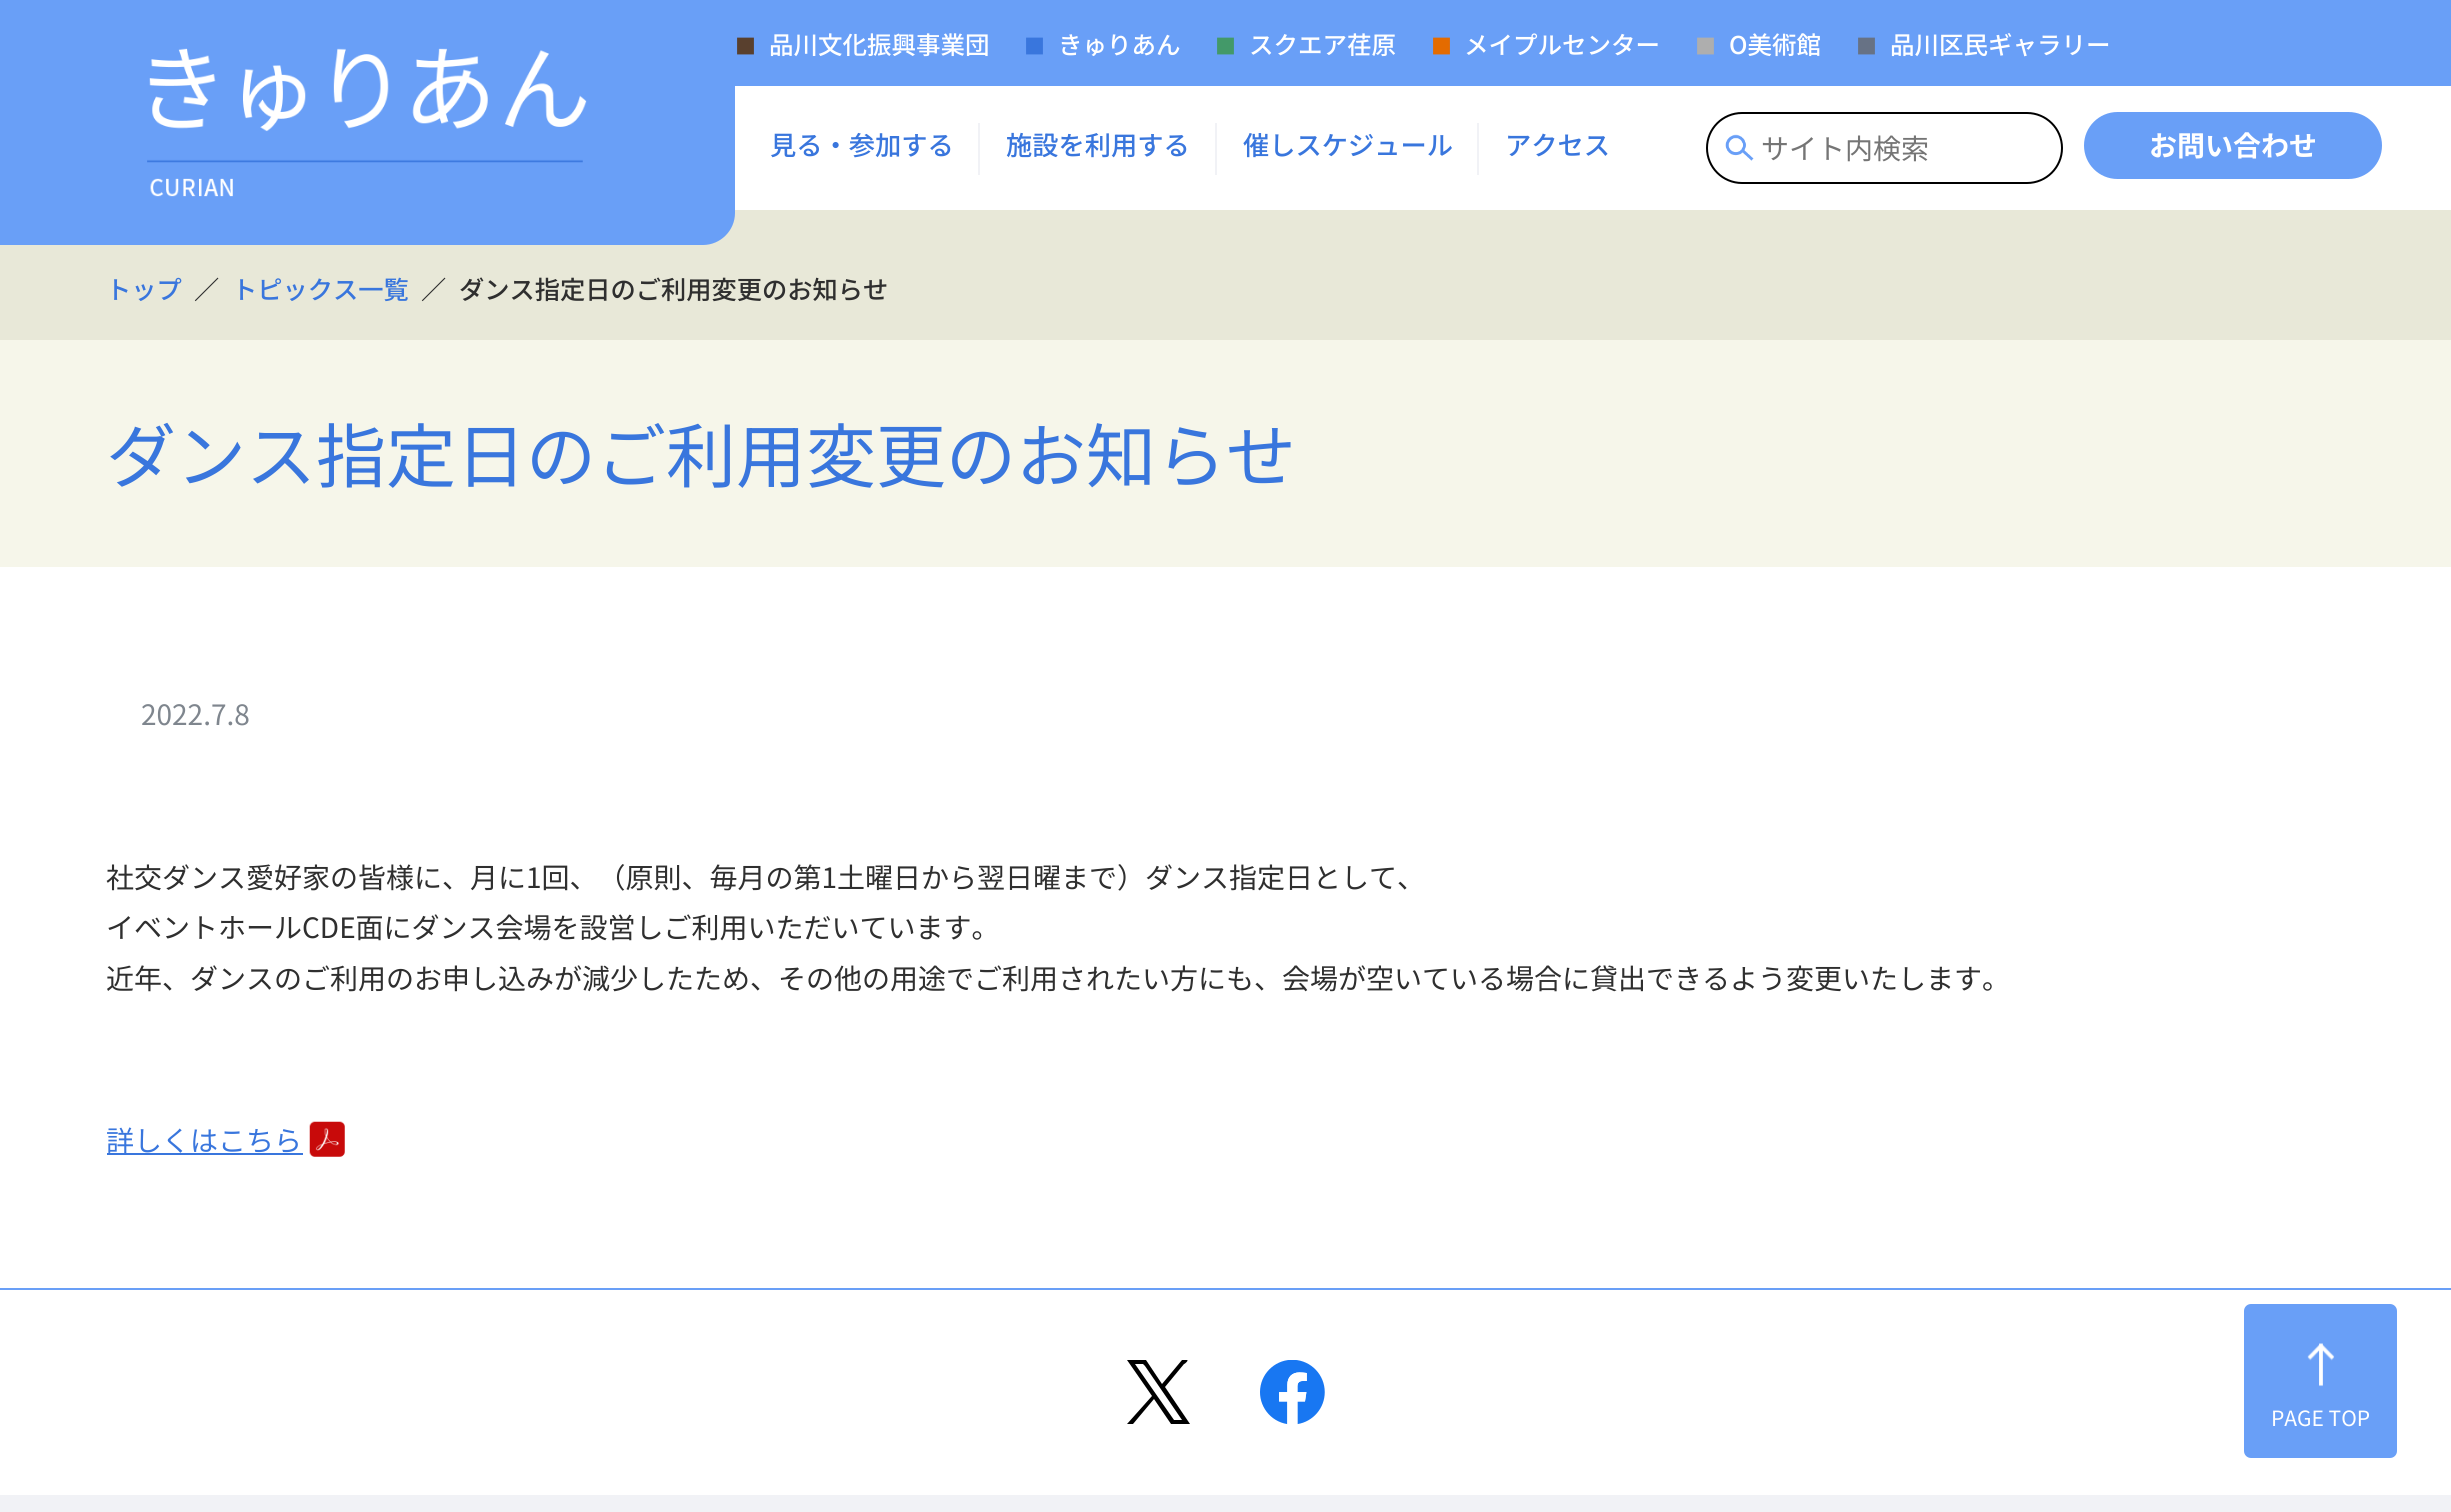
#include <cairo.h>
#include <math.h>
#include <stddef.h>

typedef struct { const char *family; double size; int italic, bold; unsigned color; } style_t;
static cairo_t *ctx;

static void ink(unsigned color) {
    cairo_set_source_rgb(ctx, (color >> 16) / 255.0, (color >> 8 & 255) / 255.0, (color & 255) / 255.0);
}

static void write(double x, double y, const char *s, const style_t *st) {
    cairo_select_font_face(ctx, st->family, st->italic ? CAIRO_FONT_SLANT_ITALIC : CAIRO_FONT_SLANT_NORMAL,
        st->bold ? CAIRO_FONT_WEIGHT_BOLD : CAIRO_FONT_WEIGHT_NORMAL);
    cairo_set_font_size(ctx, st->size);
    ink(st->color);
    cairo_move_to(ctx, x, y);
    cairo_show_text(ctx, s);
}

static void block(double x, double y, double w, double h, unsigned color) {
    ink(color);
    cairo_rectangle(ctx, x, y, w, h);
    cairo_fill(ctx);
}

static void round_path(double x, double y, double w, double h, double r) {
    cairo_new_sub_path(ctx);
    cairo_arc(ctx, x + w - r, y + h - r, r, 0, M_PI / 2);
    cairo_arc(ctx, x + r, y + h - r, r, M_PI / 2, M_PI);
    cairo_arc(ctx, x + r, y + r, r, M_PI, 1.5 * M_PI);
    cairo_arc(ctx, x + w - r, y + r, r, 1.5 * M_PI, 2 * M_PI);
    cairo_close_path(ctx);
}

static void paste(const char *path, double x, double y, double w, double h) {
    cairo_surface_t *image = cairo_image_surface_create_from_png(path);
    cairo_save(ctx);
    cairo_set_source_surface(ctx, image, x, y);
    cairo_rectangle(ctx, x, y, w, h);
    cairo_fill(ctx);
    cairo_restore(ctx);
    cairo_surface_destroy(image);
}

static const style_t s1 = {"Noto Sans JP Medium", 21, 0, 0, 0x59402e};
static const style_t s2 = {"Noto Sans JP Medium", 24.5, 0, 0, 0xffffff};
static const style_t s3 = {"Noto Sans JP Medium", 21, 0, 0, 0x3976dd};
static const style_t s4 = {"Noto Sans JP Medium", 21, 0, 0, 0x439969};
static const style_t s5 = {"Noto Sans JP Medium", 21, 0, 0, 0xe46b00};
static const style_t s6 = {"Noto Sans JP Medium", 21, 0, 0, 0xaeaeae};
static const style_t s7 = {"Noto Sans JP Medium", 21, 0, 0, 0x677285};
static const style_t s8 = {"Noto Sans JP Medium", 26.25, 0, 0, 0x3976dd};
static const style_t s9 = {"Noto Sans JP", 28, 0, 0, 0x757575};
static const style_t s10 = {"Noto Sans JP", 28, 0, 1, 0xffffff};
static const style_t s11 = {"Noto Sans JP Medium", 25.25, 0, 0, 0x3976dd};
static const style_t s12 = {"Noto Sans JP Medium", 25.25, 0, 0, 0x2f2f2f};
static const style_t s13 = {"Noto Sans JP", 70, 0, 0, 0x3976dd};
static const style_t s14 = {"Noto Sans JP", 28, 0, 0, 0x7f868e};
static const style_t s15 = {"Noto Sans JP", 28, 0, 0, 0x2f2f2f};
static const style_t s16 = {"Noto Sans JP", 28, 0, 0, 0x3976dd};
static const style_t s17 = {"Noto Sans JP", 21, 0, 0, 0xffffff};

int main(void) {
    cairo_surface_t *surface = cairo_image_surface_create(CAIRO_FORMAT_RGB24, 2451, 1512);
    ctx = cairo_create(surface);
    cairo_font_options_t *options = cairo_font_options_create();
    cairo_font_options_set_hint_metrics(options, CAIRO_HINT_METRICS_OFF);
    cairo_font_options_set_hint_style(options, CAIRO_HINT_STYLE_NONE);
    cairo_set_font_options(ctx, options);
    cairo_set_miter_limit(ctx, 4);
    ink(0xffffff);
    cairo_paint(ctx);
    block(0, 210, 2451, 130, 0xe8e8d8);
    ink(0x699ff7);
    cairo_new_path(ctx);
    cairo_move_to(ctx, 0, 0);
    cairo_line_to(ctx, 735, 0);
    cairo_line_to(ctx, 735, 213);
    cairo_curve_to(ctx, 735, 230.5, 720.5, 245, 703, 245);
    cairo_line_to(ctx, 0, 245);
    cairo_close_path(ctx);
    cairo_fill(ctx);
    paste("pic1.png", 147, 48, 440, 149);
    block(735, 0, 1716, 86, 0x699ff7);
    write(735, 54, "■", &s1);
    write(769, 54, "品川文化振興事業団", &s2);
    write(1024, 54, "■", &s3);
    write(1058, 54, "きゅりあん", &s2);
    write(1215, 54, "■", &s4);
    write(1249, 54, "スクエア荏原", &s2);
    write(1431, 54, "■", &s5);
    write(1464, 54, "メイプルセンター", &s2);
    write(1695, 54, "■", &s6);
    write(1729, 54, "O美術館", &s2);
    write(1856, 54, "■", &s7);
    write(1890, 54, "品川区民ギャラリー", &s2);
    write(770, 155, "見る・参加する", &s8);
    block(978, 123, 2, 52, 0xf1f2f6);
    write(1006, 155, "施設を利用する", &s8);
    block(1215, 123, 2, 52, 0xf1f2f6);
    write(1243, 155, "催しスケジュール", &s8);
    block(1477, 123, 2, 52, 0xf1f2f6);
    write(1505, 155, "アクセス", &s8);
    paste("pic2.png", 1725, 134, 29, 27);
    round_path(1707, 113, 355, 70, 35);
    ink(0x000000);
    cairo_stroke(ctx);
    write(1761, 159, "サイト内検索", &s9);
    ink(0x699ff7);
    round_path(2084, 112, 298, 67, 33.5);
    cairo_fill(ctx);
    write(2149, 156, "お問い合わせ", &s10);
    write(106, 299, "トップ", &s11);
    write(194, 299, "／", &s12);
    write(232, 299, "トピックス一覧", &s11);
    write(421, 299, "／", &s12);
    write(459, 299, "ダンス指定日のご利用変更のお知らせ", &s12);
    block(0, 340, 2451, 227, 0xf6f6ea);
    write(106, 482, "ダンス指定日のご利用変更のお知らせ", &s13);
    write(141, 725, "2022.7.8", &s14);
    write(106, 888, "社交ダンス愛好家の皆様に、月に1回、（原則、毎月の第1土曜日から翌日曜まで）ダンス指定日として、", &s15);
    write(106, 938, "イベントホールCDE面にダンス会場を設営しご利用いただいています。", &s15);
    write(106, 989, "近年、ダンスのご利用のお申し込みが減少したため、その他の用途でご利用されたい方にも、会場が空いている場合に貸出できるよう変更いたします。", &s15);
    block(107, 1153, 196, 2, 0x3976dd);
    write(106, 1151, "詳しくはこちら", &s16);
    paste("pic3.png", 309, 1121, 36, 36);
    block(0, 1495, 2451, 17, 0xf1f2f6);
    block(0, 1288, 2451, 2, 0x699ff7);
    ink(0x000000);
    cairo_new_path(ctx);
    cairo_move_to(ctx, 1127, 1360);
    cairo_line_to(ctx, 1152, 1396);
    cairo_line_to(ctx, 1127, 1424);
    cairo_line_to(ctx, 1133, 1424);
    cairo_line_to(ctx, 1154, 1399);
    cairo_line_to(ctx, 1171, 1424);
    cairo_line_to(ctx, 1190, 1424);
    cairo_line_to(ctx, 1165, 1387);
    cairo_line_to(ctx, 1184, 1364);
    cairo_curve_to(ctx, 1185, 1364, 1189, 1360, 1187, 1360);
    cairo_line_to(ctx, 1182, 1360);
    cairo_line_to(ctx, 1162, 1384);
    cairo_line_to(ctx, 1146, 1360);
    cairo_close_path(ctx);
    cairo_move_to(ctx, 1145, 1366);
    cairo_line_to(ctx, 1182, 1420);
    cairo_line_to(ctx, 1174, 1420);
    cairo_line_to(ctx, 1135, 1364);
    cairo_line_to(ctx, 1143, 1364);
    cairo_close_path(ctx);
    cairo_fill(ctx);
    paste("pic4.png", 1260, 1360, 65, 65);
    ink(0x699ff7);
    round_path(2243, 1303, 155, 156, 8);
    cairo_fill_preserve(ctx);
    ink(0xffffff);
    cairo_stroke(ctx);
    paste("pic5.png", 2307, 1343, 28, 44);
    write(2271, 1426, "PAGE TOP", &s17);
    cairo_surface_write_to_png(surface, "screenshot.png");
    cairo_font_options_destroy(options);
    cairo_destroy(ctx);
    cairo_surface_destroy(surface);
    return 0;
}
